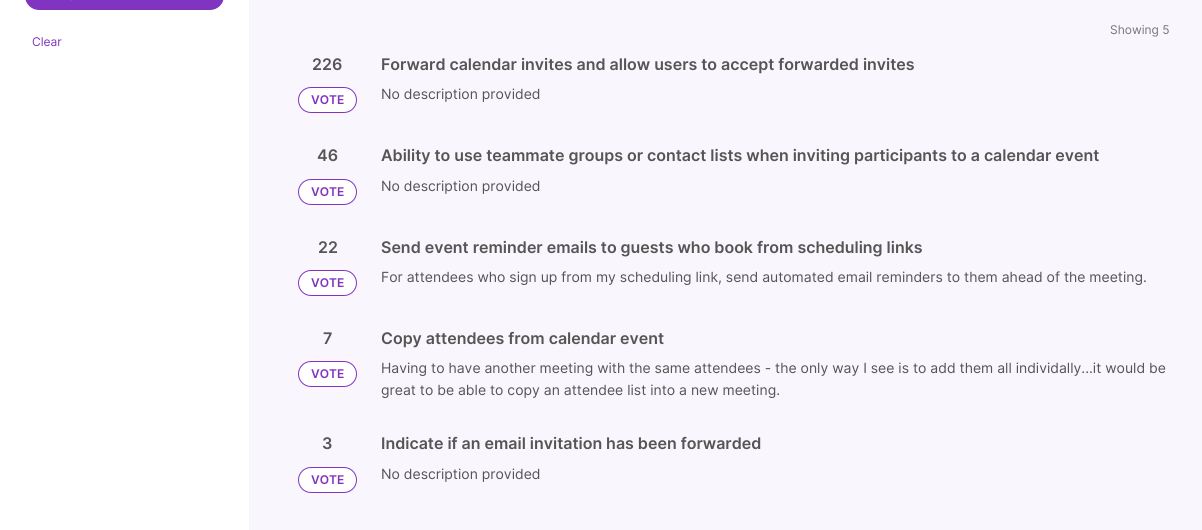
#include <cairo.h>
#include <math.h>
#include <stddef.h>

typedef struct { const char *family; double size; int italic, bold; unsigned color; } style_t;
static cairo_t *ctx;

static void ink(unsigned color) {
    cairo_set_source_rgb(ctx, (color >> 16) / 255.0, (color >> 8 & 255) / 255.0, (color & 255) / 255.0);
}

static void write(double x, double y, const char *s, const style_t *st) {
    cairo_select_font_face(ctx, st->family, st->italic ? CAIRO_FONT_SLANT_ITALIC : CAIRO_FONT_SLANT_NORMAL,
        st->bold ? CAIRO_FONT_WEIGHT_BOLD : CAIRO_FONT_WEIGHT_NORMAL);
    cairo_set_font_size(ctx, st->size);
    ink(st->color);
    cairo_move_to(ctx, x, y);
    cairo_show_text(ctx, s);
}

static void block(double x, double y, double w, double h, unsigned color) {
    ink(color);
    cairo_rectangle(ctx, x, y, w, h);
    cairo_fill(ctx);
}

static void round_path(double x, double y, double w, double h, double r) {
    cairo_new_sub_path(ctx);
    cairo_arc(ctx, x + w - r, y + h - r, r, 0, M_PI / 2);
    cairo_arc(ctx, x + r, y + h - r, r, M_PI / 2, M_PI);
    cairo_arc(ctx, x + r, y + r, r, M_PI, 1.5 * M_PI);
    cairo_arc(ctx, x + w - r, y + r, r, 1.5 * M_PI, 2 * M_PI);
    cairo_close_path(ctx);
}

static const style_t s1 = {"Inter", 12, 0, 0, 0x8034bf};
static const style_t s2 = {"Inter", 12, 0, 0, 0x767676};
static const style_t s3 = {"Inter SemiBold", 16, 0, 0, 0x555555};
static const style_t s4 = {"Inter SemiBold", 12, 0, 0, 0x8034bf};
static const style_t s5 = {"Inter", 14, 0, 0, 0x555555};

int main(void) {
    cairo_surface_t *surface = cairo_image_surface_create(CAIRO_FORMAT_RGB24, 1202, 530);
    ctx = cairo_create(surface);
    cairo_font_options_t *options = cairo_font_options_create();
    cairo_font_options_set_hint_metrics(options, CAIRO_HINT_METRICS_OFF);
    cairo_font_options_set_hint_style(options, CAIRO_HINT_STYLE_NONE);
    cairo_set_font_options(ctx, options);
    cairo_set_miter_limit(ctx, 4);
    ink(0xfaf6fd);
    cairo_paint(ctx);
    block(0, 0, 249, 530, 0xffffff);
    block(249, 0, 1, 530, 0xf4f4f4);
    ink(0x8034bf);
    round_path(25, -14, 199, 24, 14);
    cairo_fill(ctx);
    block(70, 0, 2, 1, 0x8a44c4);
    write(32, 46, "Clear", &s1);
    write(1110, 34, "Showing 5", &s2);
    write(312, 70, "226", &s3);
    ink(0xffffff);
    round_path(298.5, 87.5, 58, 25, 12.5);
    cairo_fill_preserve(ctx);
    ink(0x8034bf);
    cairo_set_line_width(ctx, 1);
    cairo_stroke(ctx);
    write(311, 104, "VOTE", &s4);
    write(381, 70, "Forward calendar invites and allow users to accept forwarded invites", &s3);
    write(381, 99, "No description provided", &s5);
    write(317, 161, "46", &s3);
    ink(0xffffff);
    round_path(298.5, 179.5, 58, 25, 12.5);
    cairo_fill_preserve(ctx);
    ink(0x8034bf);
    cairo_stroke(ctx);
    write(311, 196, "VOTE", &s4);
    write(381, 161, "Ability to use teammate groups or contact lists when inviting participants to a calendar event", &s3);
    write(381, 191, "No description provided", &s5);
    write(318, 253, "22", &s3);
    ink(0xffffff);
    round_path(298.5, 270.5, 58, 25, 12.5);
    cairo_fill_preserve(ctx);
    ink(0x8034bf);
    cairo_stroke(ctx);
    write(311, 287, "VOTE", &s4);
    write(381, 253, "Send event reminder emails to guests who book from scheduling links", &s3);
    write(381, 282, "For attendees who sign up from my scheduling link, send automated email reminders to them ahead of the meeting.", &s5);
    write(323, 344, "7", &s3);
    ink(0xffffff);
    round_path(298.5, 361.5, 58, 25, 12.5);
    cairo_fill_preserve(ctx);
    ink(0x8034bf);
    cairo_stroke(ctx);
    write(311, 378, "VOTE", &s4);
    write(381, 344, "Copy attendees from calendar event", &s3);
    write(381, 373, "Having to have another meeting with the same attendees - the only way I see is to add them all individally...it would be", &s5);
    write(381, 395, "great to be able to copy an attendee list into a new meeting.", &s5);
    write(322, 449, "3", &s3);
    ink(0xffffff);
    round_path(298.5, 467.5, 58, 25, 12.5);
    cairo_fill_preserve(ctx);
    ink(0x8034bf);
    cairo_stroke(ctx);
    write(311, 484, "VOTE", &s4);
    write(381, 449, "Indicate if an email invitation has been forwarded", &s3);
    write(381, 479, "No description provided", &s5);
    cairo_surface_write_to_png(surface, "screenshot.png");
    cairo_font_options_destroy(options);
    cairo_destroy(ctx);
    cairo_surface_destroy(surface);
    return 0;
}
